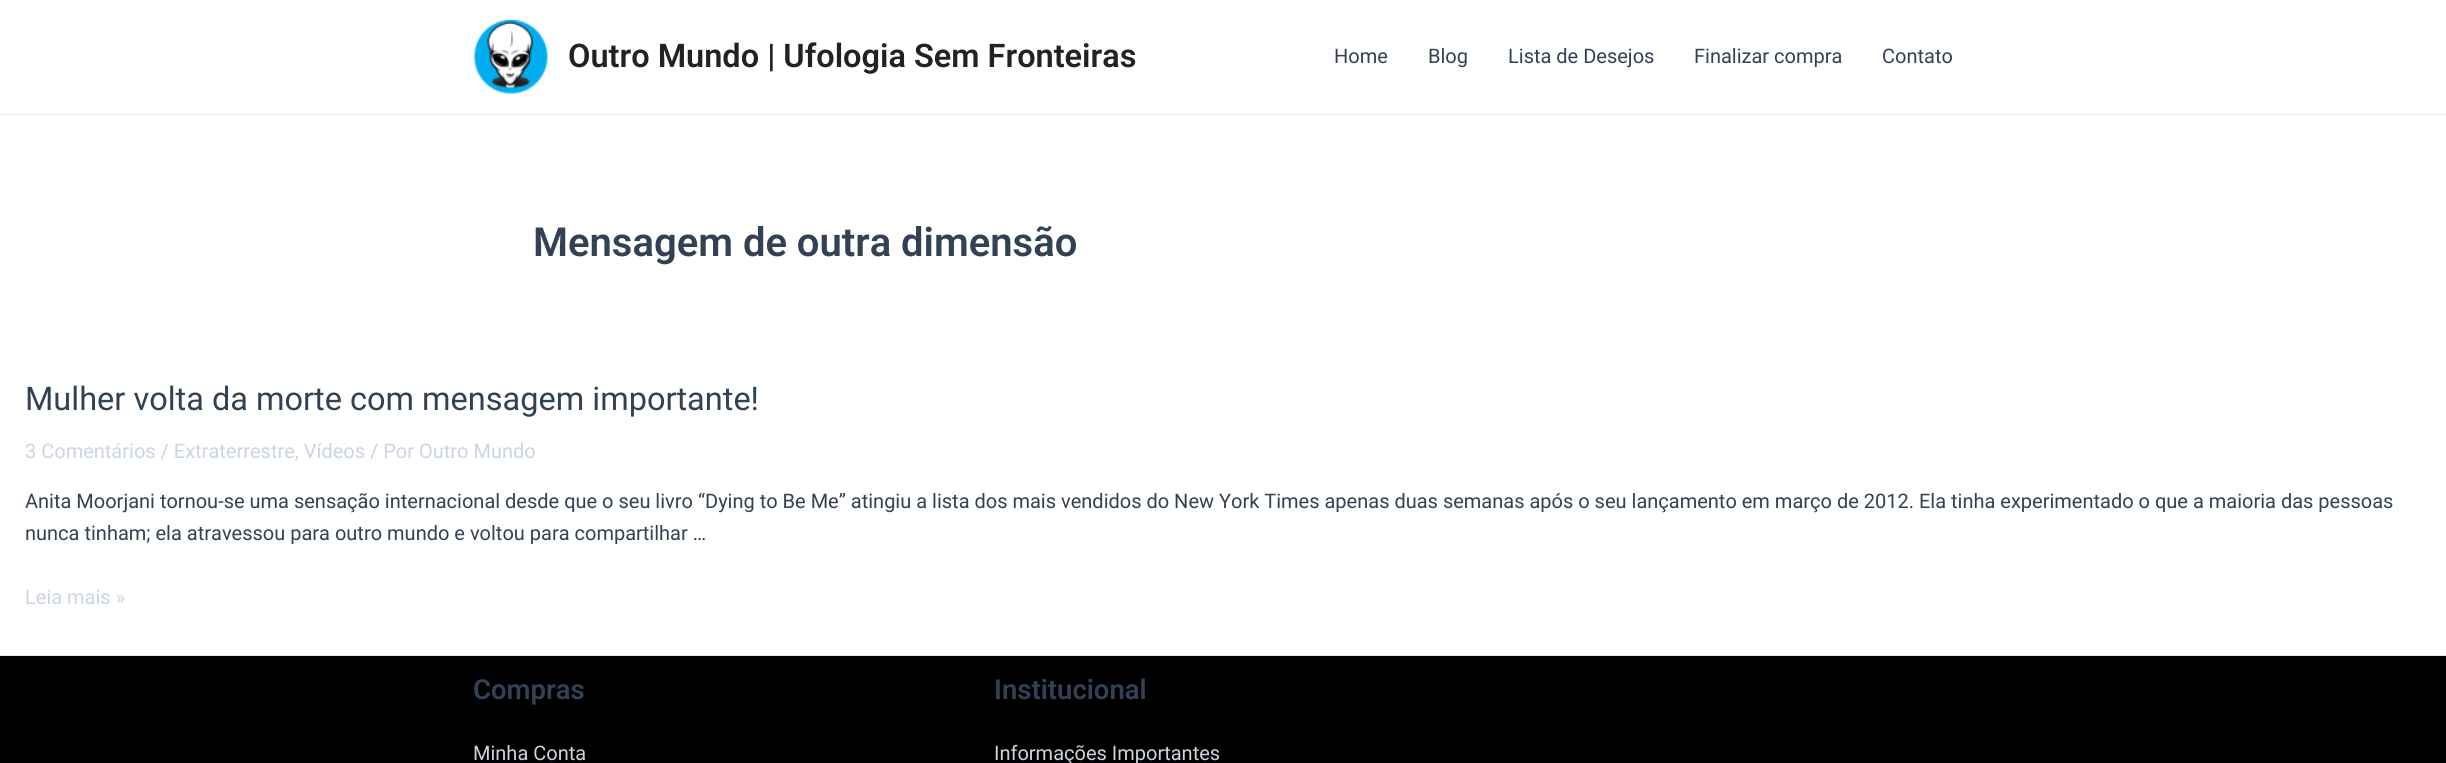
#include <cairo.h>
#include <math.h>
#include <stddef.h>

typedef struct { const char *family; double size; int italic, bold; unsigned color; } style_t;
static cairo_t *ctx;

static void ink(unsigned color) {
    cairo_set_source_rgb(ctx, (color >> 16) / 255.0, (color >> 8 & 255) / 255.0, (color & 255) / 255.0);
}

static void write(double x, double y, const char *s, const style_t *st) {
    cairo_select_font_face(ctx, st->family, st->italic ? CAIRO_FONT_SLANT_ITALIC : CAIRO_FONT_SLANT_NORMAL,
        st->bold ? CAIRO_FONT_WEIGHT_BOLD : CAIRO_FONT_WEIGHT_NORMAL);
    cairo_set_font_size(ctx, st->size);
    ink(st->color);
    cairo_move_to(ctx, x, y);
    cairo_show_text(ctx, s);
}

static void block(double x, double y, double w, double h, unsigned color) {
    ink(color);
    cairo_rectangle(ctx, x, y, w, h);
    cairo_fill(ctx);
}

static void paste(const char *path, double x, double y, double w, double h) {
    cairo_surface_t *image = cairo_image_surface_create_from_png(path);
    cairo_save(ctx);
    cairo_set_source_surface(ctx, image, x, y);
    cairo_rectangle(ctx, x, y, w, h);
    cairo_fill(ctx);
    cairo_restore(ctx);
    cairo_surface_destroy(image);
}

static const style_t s1 = {"Roboto SemiBold", 32.5, 0, 0, 0x222222};
static const style_t s2 = {"Roboto", 20, 0, 0, 0x334155};
static const style_t s3 = {"Roboto SemiBold", 40, 0, 0, 0x334155};
static const style_t s4 = {"Roboto", 32.5, 0, 0, 0x334155};
static const style_t s5 = {"Roboto", 20, 0, 0, 0xcbd5e1};
static const style_t s6 = {"Roboto SemiBold", 27.5, 0, 0, 0x334155};

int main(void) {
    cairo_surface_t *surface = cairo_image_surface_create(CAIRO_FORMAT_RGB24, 2446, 763);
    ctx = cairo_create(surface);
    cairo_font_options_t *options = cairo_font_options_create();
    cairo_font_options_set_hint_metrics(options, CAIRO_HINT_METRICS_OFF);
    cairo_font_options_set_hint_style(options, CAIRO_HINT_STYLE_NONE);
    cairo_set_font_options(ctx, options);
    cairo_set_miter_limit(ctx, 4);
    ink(0xffffff);
    cairo_paint(ctx);
    block(0, 114, 2446, 1, 0xeaeaea);
    paste("pic1.png", 473, 20, 75, 74);
    write(568, 67, "Outro Mundo | Ufologia Sem Fronteiras", &s1);
    write(1334, 63, "Home", &s2);
    write(1428, 63, "Blog", &s2);
    write(1508, 63, "Lista de Desejos", &s2);
    write(1694, 63, "Finalizar compra", &s2);
    write(1882, 63, "Contato", &s2);
    write(533, 256, "Mensagem de outra dimensão", &s3);
    write(25, 410, "Mulher volta da morte com mensagem importante!", &s4);
    write(25, 458, "3 Comentários / Extraterrestre, Vídeos / Por Outro Mundo", &s5);
    write(25, 508, "Anita Moorjani tornou-se uma sensação internacional desde que o seu livro “Dying to Be Me” atingiu a lista dos mais vendidos do New York Times apenas duas semanas após o seu lançamento em março de 2012. Ela tinha experimentado o que a maioria das pessoas", &s2);
    write(25, 540, "nunca tinham; ela atravessou para outro mundo e voltou para compartilhar …", &s2);
    write(25, 604, "Leia mais »", &s5);
    block(0, 656, 2446, 107, 0x000000);
    block(0, 655, 2446, 1, 0xe6e6e6);
    write(473, 699, "Compras", &s6);
    write(473, 760, "Minha Conta", &s5);
    write(994, 699, "Institucional", &s6);
    write(994, 760, "Informações Importantes", &s5);
    cairo_surface_write_to_png(surface, "screenshot.png");
    cairo_font_options_destroy(options);
    cairo_destroy(ctx);
    cairo_surface_destroy(surface);
    return 0;
}
